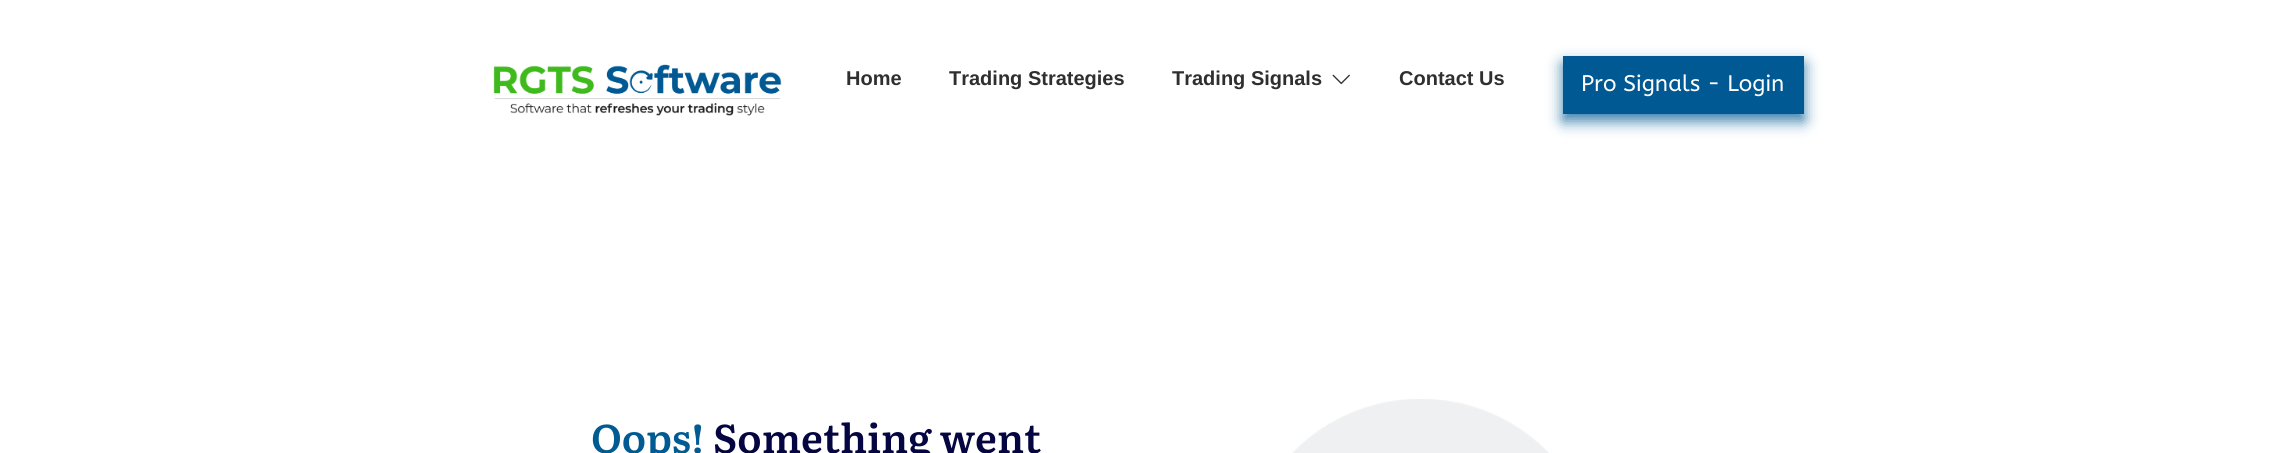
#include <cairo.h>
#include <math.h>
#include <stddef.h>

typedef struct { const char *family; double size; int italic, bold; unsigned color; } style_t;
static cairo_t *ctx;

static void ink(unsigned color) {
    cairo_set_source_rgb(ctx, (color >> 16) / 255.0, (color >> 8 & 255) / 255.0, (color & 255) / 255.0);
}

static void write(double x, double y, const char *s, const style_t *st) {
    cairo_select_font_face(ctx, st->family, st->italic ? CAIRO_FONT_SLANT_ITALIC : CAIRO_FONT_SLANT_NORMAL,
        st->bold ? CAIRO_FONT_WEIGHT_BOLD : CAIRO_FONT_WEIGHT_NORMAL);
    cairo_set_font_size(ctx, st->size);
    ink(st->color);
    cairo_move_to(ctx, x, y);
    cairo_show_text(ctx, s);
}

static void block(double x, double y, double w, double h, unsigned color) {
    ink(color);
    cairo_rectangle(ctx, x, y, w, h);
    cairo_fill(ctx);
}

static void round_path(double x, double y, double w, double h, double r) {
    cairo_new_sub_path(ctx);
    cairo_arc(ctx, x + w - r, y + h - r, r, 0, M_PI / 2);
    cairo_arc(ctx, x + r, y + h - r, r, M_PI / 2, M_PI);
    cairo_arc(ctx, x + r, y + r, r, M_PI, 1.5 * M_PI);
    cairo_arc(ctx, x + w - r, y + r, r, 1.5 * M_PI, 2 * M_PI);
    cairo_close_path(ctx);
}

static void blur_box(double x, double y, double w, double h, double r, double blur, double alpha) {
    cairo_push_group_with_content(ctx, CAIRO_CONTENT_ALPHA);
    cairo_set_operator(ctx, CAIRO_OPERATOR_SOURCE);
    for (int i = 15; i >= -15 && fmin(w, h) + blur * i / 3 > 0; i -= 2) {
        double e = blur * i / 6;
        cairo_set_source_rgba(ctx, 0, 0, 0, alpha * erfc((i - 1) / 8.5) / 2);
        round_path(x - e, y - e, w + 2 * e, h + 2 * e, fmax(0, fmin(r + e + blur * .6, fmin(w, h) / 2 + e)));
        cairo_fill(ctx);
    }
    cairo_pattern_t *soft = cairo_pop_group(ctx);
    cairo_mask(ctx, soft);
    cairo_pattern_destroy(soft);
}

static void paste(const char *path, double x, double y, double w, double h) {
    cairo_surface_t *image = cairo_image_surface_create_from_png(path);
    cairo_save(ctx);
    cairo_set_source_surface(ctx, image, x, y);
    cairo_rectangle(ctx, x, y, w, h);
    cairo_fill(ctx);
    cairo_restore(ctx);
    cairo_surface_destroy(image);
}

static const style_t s1 = {"Liberation Sans", 20, 0, 1, 0x2f2f2f};
static const style_t s2 = {"ABeeZee", 22.5, 0, 0, 0xffffff};
static const style_t s3 = {"Literata SemiBold", 40, 0, 0, 0x015b93};
static const style_t s4 = {"Literata SemiBold", 40, 0, 0, 0x050541};

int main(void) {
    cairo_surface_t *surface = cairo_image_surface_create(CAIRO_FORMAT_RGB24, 2291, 453);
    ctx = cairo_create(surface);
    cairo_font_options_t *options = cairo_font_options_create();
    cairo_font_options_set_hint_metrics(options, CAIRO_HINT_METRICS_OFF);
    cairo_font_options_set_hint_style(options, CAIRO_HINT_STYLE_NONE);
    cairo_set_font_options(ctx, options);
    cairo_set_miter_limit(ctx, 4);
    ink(0xffffff);
    cairo_paint(ctx);
    paste("pic1.png", 493, 64, 289, 52);
    write(846, 85, "Home", &s1);
    cairo_save(ctx);
    cairo_rectangle(ctx, 949, 59, 175, 40);
    cairo_clip(ctx);
    write(949, 85, "Trading Strategies", &s1);
    cairo_restore(ctx);
    write(1172, 85, "Trading Signals", &s1);
    paste("pic2.png", 1332, 74, 18, 11);
    write(1399, 85, "Contact Us", &s1);
    ink(0x005b94);
    blur_box(1563, 64, 241, 57, 0, 7.5, 0.8);
    block(1563, 56, 241, 58, 0x005993);
    write(1581, 91, "Pro Signals - Login", &s2);
    write(591, 453, "Oops!", &s3);
    write(713, 453, "Something went", &s4);
    paste("pic3.png", 1292, 399, 257, 54);
    cairo_surface_write_to_png(surface, "screenshot.png");
    cairo_font_options_destroy(options);
    cairo_destroy(ctx);
    cairo_surface_destroy(surface);
    return 0;
}
